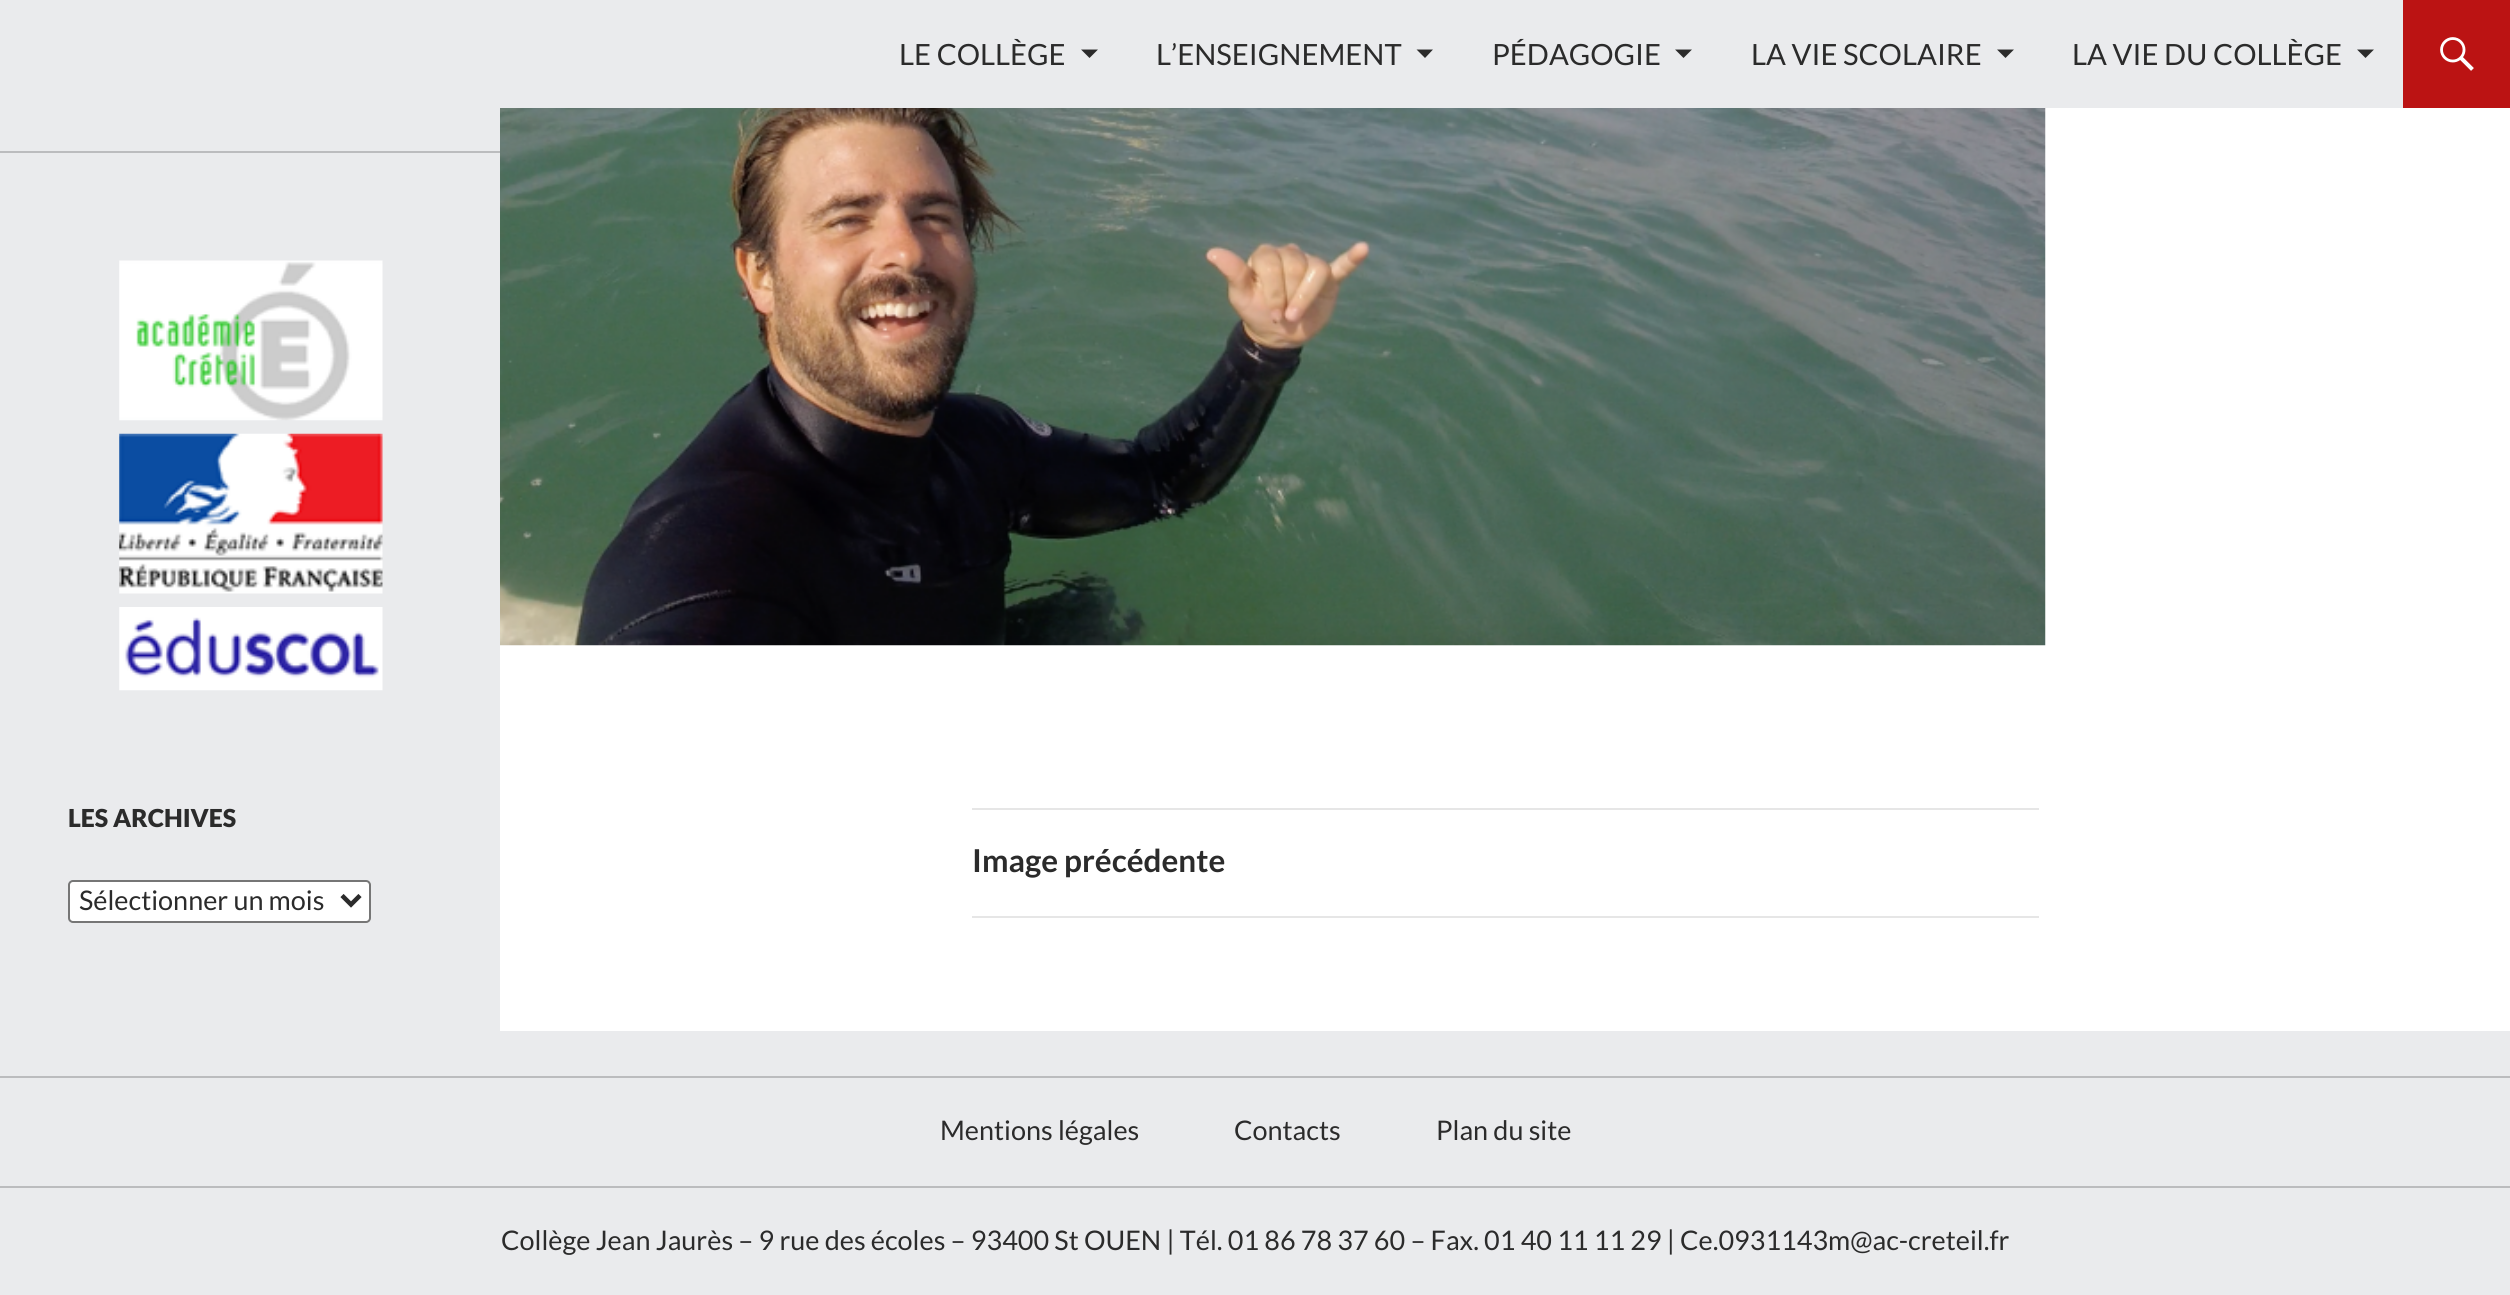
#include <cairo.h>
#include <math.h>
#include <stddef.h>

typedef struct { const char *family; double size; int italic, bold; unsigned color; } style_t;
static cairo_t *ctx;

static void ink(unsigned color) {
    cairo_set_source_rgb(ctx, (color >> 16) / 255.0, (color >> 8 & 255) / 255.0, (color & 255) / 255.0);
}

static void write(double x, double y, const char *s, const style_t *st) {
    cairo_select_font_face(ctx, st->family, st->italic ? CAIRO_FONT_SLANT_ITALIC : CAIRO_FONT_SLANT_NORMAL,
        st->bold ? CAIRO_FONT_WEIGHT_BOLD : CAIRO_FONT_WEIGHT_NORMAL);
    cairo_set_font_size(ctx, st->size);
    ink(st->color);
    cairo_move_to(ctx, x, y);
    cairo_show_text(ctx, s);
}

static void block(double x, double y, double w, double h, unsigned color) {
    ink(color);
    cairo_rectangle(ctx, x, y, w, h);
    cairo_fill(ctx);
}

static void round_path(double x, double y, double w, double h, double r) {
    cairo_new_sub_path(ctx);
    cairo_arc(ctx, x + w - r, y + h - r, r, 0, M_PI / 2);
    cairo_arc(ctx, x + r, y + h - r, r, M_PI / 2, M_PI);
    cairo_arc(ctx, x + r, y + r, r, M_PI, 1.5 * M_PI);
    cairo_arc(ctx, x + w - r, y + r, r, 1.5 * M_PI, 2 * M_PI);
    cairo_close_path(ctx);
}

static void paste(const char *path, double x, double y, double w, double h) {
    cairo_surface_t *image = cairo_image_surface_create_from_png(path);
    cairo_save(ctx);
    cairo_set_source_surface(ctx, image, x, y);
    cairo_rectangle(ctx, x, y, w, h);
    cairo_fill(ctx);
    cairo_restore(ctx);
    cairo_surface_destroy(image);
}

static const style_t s1 = {"Lato", 29.25, 0, 0, 0x2b2b2b};
static const style_t s2 = {"Lato Black", 24.75, 0, 0, 0x2b2b2b};
static const style_t s3 = {"Lato", 27, 0, 0, 0x2b2b2b};
static const style_t s4 = {"Lato", 31.5, 0, 1, 0x2b2b2b};

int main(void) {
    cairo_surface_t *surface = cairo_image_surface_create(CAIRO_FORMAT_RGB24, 2510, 1295);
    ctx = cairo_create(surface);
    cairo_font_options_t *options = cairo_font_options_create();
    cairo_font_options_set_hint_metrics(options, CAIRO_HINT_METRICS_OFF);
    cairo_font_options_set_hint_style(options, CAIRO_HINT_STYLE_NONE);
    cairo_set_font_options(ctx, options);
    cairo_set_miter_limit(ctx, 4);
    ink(0xffffff);
    cairo_paint(ctx);
    block(0, 0, 2403, 108, 0xeaebed);
    write(899, 65, "LE COLLÈGE", &s1);
    cairo_new_path(ctx);
    cairo_move_to(ctx, 1081, 49.5);
    cairo_line_to(ctx, 1089.5, 58);
    cairo_line_to(ctx, 1098, 49.5);
    cairo_close_path(ctx);
    cairo_fill(ctx);
    write(1156, 65, "L’ENSEIGNEMENT", &s1);
    cairo_new_path(ctx);
    cairo_move_to(ctx, 1416.5, 49.5);
    cairo_line_to(ctx, 1425, 58);
    cairo_line_to(ctx, 1433, 49.5);
    cairo_close_path(ctx);
    cairo_fill(ctx);
    write(1492, 65, "PÉDAGOGIE", &s1);
    cairo_new_path(ctx);
    cairo_move_to(ctx, 1675, 49.5);
    cairo_line_to(ctx, 1683.5, 58);
    cairo_line_to(ctx, 1692, 49.5);
    cairo_close_path(ctx);
    cairo_fill(ctx);
    write(1751, 65, "LA VIE SCOLAIRE", &s1);
    cairo_new_path(ctx);
    cairo_move_to(ctx, 1997, 49.5);
    cairo_line_to(ctx, 2005.5, 58);
    cairo_line_to(ctx, 2014, 49.5);
    cairo_close_path(ctx);
    cairo_fill(ctx);
    write(2072, 65, "LA VIE DU COLLÈGE", &s1);
    cairo_new_path(ctx);
    cairo_move_to(ctx, 2357, 49.5);
    cairo_line_to(ctx, 2365.5, 58);
    cairo_line_to(ctx, 2374, 49.5);
    cairo_close_path(ctx);
    cairo_fill(ctx);
    block(2403, 0, 107, 108, 0xbb1313);
    paste("pic1.png", 2440, 37, 34, 34);
    block(0, 108, 500, 923, 0xeaebed);
    block(0, 151, 500, 2, 0xbbbcbe);
    paste("pic2.png", 119, 260, 264, 161);
    paste("pic3.png", 119, 433, 264, 161);
    paste("pic4.png", 119, 607, 264, 84);
    write(68, 827, "LES ARCHIVES", &s2);
    ink(0xffffff);
    round_path(69, 881, 301, 41, 4);
    cairo_fill_preserve(ctx);
    ink(0x767676);
    cairo_stroke(ctx);
    cairo_new_path(ctx);
    cairo_move_to(ctx, 342, 895.5);
    cairo_line_to(ctx, 351, 904.5);
    cairo_line_to(ctx, 360, 895.5);
    ink(0x2b2b2b);
    cairo_set_line_width(ctx, 4.5);
    cairo_stroke(ctx);
    write(79, 910, "Sélectionner un mois", &s3);
    paste("pic5.png", 500, 108, 1546, 538);
    block(972, 808, 1067, 2, 0xe6e6e6);
    block(972, 916, 1067, 2, 0xe6e6e6);
    write(972, 872, "Image précédente", &s4);
    block(0, 1031, 2510, 264, 0xeaebed);
    block(0, 1076, 2510, 2, 0xbbbcbe);
    write(940, 1140, "Mentions légales", &s3);
    write(1234, 1140, "Contacts", &s3);
    write(1436, 1140, "Plan du site", &s3);
    block(0, 1186, 2510, 2, 0xbbbcbe);
    write(501, 1250, "Collège Jean Jaurès – 9 rue des écoles – 93400 St OUEN | Tél. 01 86 78 37 60 – Fax. 01 40 11 11 29 | Ce.0931143m@ac-creteil.fr", &s3);
    cairo_surface_write_to_png(surface, "screenshot.png");
    cairo_font_options_destroy(options);
    cairo_destroy(ctx);
    cairo_surface_destroy(surface);
    return 0;
}
